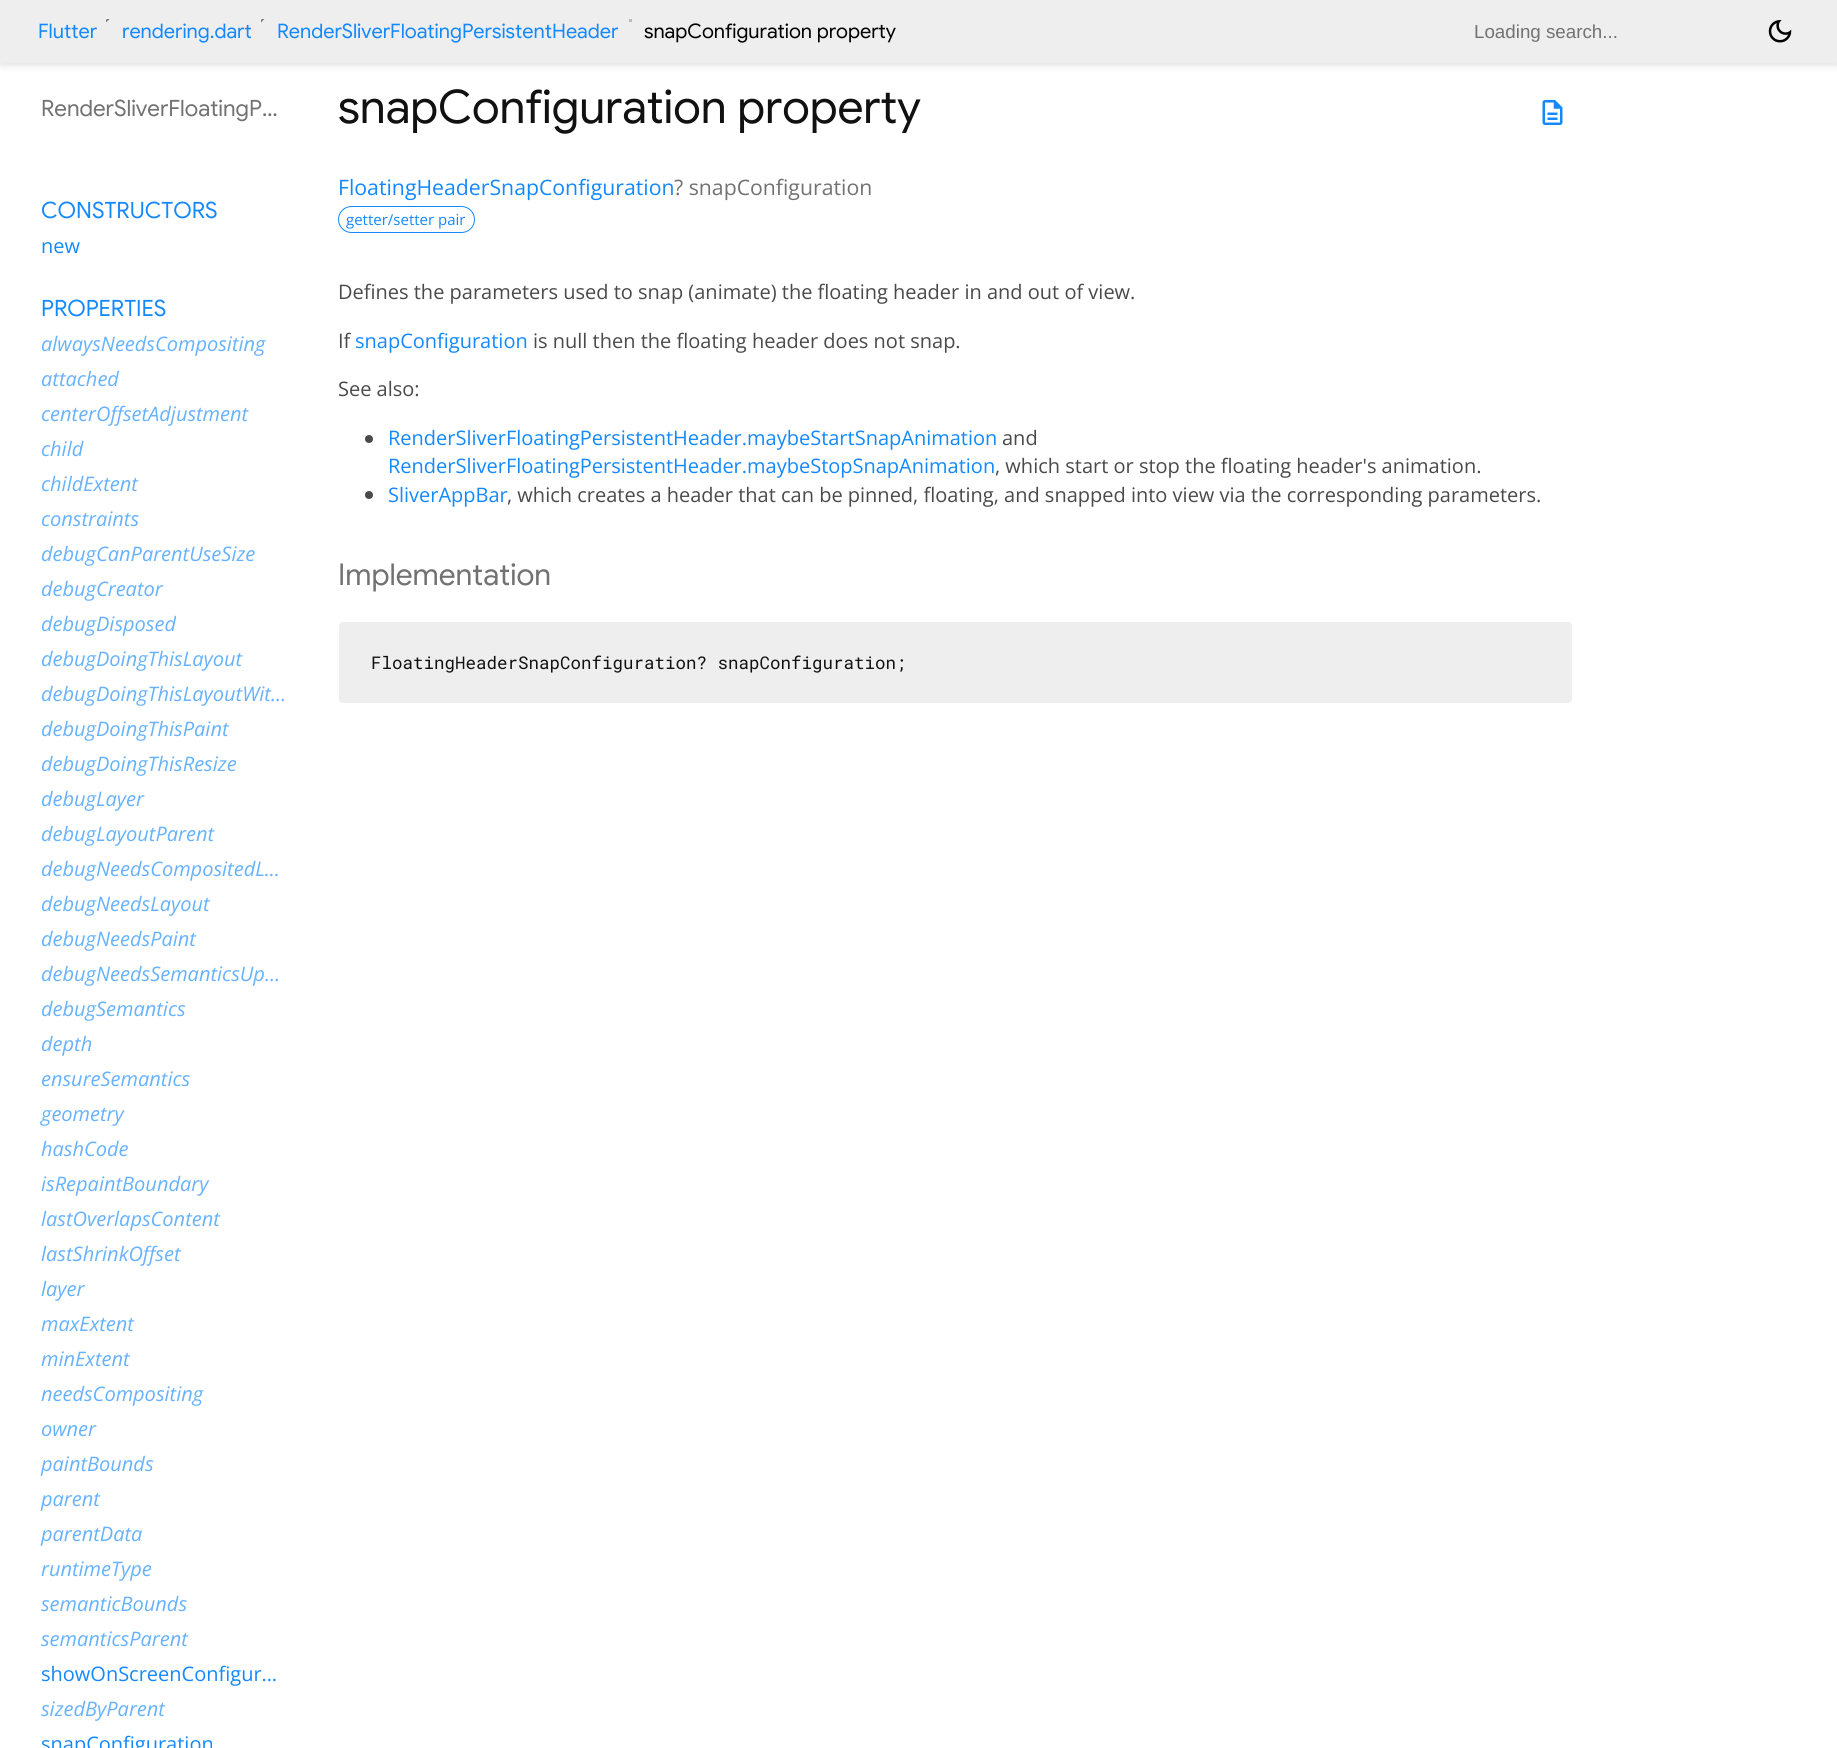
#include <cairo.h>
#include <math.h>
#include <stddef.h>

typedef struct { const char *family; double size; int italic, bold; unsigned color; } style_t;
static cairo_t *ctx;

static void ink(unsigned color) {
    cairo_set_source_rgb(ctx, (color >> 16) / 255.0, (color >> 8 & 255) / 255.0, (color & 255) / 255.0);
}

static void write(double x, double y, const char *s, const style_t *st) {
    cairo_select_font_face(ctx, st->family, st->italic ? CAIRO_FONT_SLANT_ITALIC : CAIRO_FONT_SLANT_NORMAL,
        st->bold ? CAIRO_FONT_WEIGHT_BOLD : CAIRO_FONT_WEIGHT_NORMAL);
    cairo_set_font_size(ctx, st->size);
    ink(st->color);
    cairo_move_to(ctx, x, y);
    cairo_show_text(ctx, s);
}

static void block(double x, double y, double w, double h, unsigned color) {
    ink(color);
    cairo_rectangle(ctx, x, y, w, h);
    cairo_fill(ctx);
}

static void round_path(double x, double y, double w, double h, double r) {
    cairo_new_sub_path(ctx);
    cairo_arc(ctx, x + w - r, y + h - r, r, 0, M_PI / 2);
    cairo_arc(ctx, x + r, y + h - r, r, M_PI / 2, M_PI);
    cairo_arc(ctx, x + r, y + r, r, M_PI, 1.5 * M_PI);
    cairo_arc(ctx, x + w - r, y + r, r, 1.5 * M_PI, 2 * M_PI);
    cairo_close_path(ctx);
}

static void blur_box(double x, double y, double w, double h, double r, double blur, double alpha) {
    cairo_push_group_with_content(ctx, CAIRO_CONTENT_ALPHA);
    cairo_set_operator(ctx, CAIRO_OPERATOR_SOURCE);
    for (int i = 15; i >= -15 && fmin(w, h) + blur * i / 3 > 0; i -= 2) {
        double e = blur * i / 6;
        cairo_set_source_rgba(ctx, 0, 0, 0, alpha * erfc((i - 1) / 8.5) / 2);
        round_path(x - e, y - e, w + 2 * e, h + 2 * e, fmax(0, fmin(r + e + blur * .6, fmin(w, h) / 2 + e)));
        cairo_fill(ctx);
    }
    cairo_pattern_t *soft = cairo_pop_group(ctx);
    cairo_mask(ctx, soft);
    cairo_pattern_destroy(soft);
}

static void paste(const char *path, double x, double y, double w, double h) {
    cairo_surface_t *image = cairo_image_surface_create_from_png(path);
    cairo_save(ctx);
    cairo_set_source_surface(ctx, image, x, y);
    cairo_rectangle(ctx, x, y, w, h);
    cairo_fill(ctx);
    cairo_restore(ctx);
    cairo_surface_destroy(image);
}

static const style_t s1 = {"Google Sans", 20, 0, 0, 0x1389fd};
static const style_t s2 = {"Google Sans", 20, 0, 0, 0x000000};
static const style_t s3 = {"Liberation Sans", 18.75, 0, 0, 0x727272};
static const style_t s4 = {"Google Sans", 22.5, 0, 0, 0x727272};
static const style_t s5 = {"Google Sans", 22.5, 0, 0, 0x1389fd};
static const style_t s6 = {"Open Sans", 20, 0, 0, 0x1389fd};
static const style_t s7 = {"Open Sans", 20, 1, 0, 0x66b2fe};
static const style_t s8 = {"Google Sans", 46.25, 0, 0, 0x111111};
static const style_t s9 = {"Open Sans", 21.25, 0, 0, 0x1389fd};
static const style_t s10 = {"Open Sans", 21.25, 0, 0, 0x727272};
static const style_t s11 = {"Open Sans", 15, 0, 0, 0x1389fd};
static const style_t s12 = {"Open Sans", 20, 0, 0, 0x4a4a4a};
static const style_t s13 = {"Google Sans", 30, 0, 0, 0x727272};
static const style_t s14 = {"Roboto Mono", 17.5, 0, 0, 0x111111};

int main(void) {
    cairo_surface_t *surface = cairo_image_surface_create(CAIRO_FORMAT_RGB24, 1837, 1748);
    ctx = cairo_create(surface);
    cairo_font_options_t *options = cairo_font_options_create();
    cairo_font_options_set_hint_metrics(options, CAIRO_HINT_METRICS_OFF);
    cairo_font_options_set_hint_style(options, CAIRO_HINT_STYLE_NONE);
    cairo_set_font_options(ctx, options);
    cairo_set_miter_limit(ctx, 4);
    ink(0xffffff);
    cairo_paint(ctx);
    ink(0x000000);
    blur_box(0, 4, 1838, 62, 0, 3, 0.1);
    block(0, 0, 1837, 63, 0xeeeeee);
    write(38, 38, "Flutter", &s1);
    paste("pic1.png", 106, 19, 4, 4);
    write(122, 38, "rendering.dart", &s1);
    paste("pic1.png", 261, 19, 4, 4);
    write(277, 38, "RenderSliverFloatingPersistentHeader", &s1);
    block(629, 19, 3, 3, 0xbbbbbb);
    write(644, 38, "snapConfiguration property", &s2);
    write(1474, 38, "Loading search...", &s3);
    paste("pic2.png", 1768, 20, 24, 23);
    write(41, 116, "RenderSliverFloatingP…", &s4);
    write(41, 218, "CONSTRUCTORS", &s5);
    write(41, 253, "new", &s6);
    write(41, 316, "PROPERTIES", &s5);
    write(41, 351, "alwaysNeedsCompositing", &s7);
    write(41, 386, "attached", &s7);
    write(41, 421, "centerOffsetAdjustment", &s7);
    write(41, 456, "child", &s7);
    write(41, 491, "childExtent", &s7);
    write(41, 526, "constraints", &s7);
    write(41, 561, "debugCanParentUseSize", &s7);
    write(41, 596, "debugCreator", &s7);
    write(41, 631, "debugDisposed", &s7);
    write(41, 666, "debugDoingThisLayout", &s7);
    write(41, 701, "debugDoingThisLayoutWit…", &s7);
    write(41, 736, "debugDoingThisPaint", &s7);
    write(41, 771, "debugDoingThisResize", &s7);
    write(41, 806, "debugLayer", &s7);
    write(41, 841, "debugLayoutParent", &s7);
    write(41, 876, "debugNeedsCompositedL…", &s7);
    write(41, 911, "debugNeedsLayout", &s7);
    write(41, 946, "debugNeedsPaint", &s7);
    write(41, 981, "debugNeedsSemanticsUp…", &s7);
    write(41, 1016, "debugSemantics", &s7);
    write(41, 1051, "depth", &s7);
    write(41, 1086, "ensureSemantics", &s7);
    write(41, 1121, "geometry", &s7);
    write(41, 1156, "hashCode", &s7);
    write(41, 1191, "isRepaintBoundary", &s7);
    write(41, 1226, "lastOverlapsContent", &s7);
    write(41, 1261, "lastShrinkOffset", &s7);
    write(41, 1296, "layer", &s7);
    write(41, 1331, "maxExtent", &s7);
    write(41, 1366, "minExtent", &s7);
    write(41, 1401, "needsCompositing", &s7);
    write(41, 1436, "owner", &s7);
    write(41, 1471, "paintBounds", &s7);
    write(41, 1506, "parent", &s7);
    write(41, 1541, "parentData", &s7);
    write(41, 1576, "runtimeType", &s7);
    write(41, 1611, "semanticBounds", &s7);
    write(41, 1646, "semanticsParent", &s7);
    write(41, 1681, "showOnScreenConfigur…", &s6);
    write(41, 1716, "sizedByParent", &s7);
    write(41, 1751, "snapConfiguration", &s6);
    write(338, 123, "snapConfiguration property", &s8);
    paste("pic3.png", 1542, 100, 21, 25);
    write(338, 195, "FloatingHeaderSnapConfiguration", &s9);
    write(674, 195, "? snapConfiguration", &s10);
    round_path(338.5, 206.5, 136, 26, 13);
    ink(0x1389fd);
    cairo_set_line_width(ctx, 1);
    cairo_stroke(ctx);
    write(346, 225, "getter/setter pair", &s11);
    write(338, 299, "Defines the parameters used to snap (animate) the floating header in and out of view.", &s12);
    write(338, 348, "If", &s12);
    write(355, 348, "snapConfiguration", &s6);
    write(533, 348, "is null then the floating header does not snap.", &s12);
    write(338, 396, "See also:", &s12);
    cairo_new_path(ctx);
    cairo_arc(ctx, 369, 439, 4, 0, 2 * M_PI);
    cairo_fill(ctx);
    write(388, 445, "RenderSliverFloatingPersistentHeader.maybeStartSnapAnimation", &s6);
    write(1002, 445, "and", &s12);
    write(388, 473, "RenderSliverFloatingPersistentHeader.maybeStopSnapAnimation", &s6);
    write(995, 473, ", which start or stop the floating header's animation.", &s12);
    cairo_new_path(ctx);
    cairo_arc(ctx, 369, 495, 4, 0, 2 * M_PI);
    cairo_fill(ctx);
    write(388, 502, "SliverAppBar", &s6);
    write(507, 502, ", which creates a header that can be pinned, floating, and snapped into view via the corresponding parameters.", &s12);
    write(338, 585, "Implementation", &s13);
    ink(0xeeeeee);
    round_path(338.5, 621.5, 1234, 82, 4.5);
    cairo_fill_preserve(ctx);
    ink(0xffffff);
    cairo_stroke(ctx);
    write(371, 669, "FloatingHeaderSnapConfiguration? snapConfiguration;", &s14);
    cairo_surface_write_to_png(surface, "screenshot.png");
    cairo_font_options_destroy(options);
    cairo_destroy(ctx);
    cairo_surface_destroy(surface);
    return 0;
}
